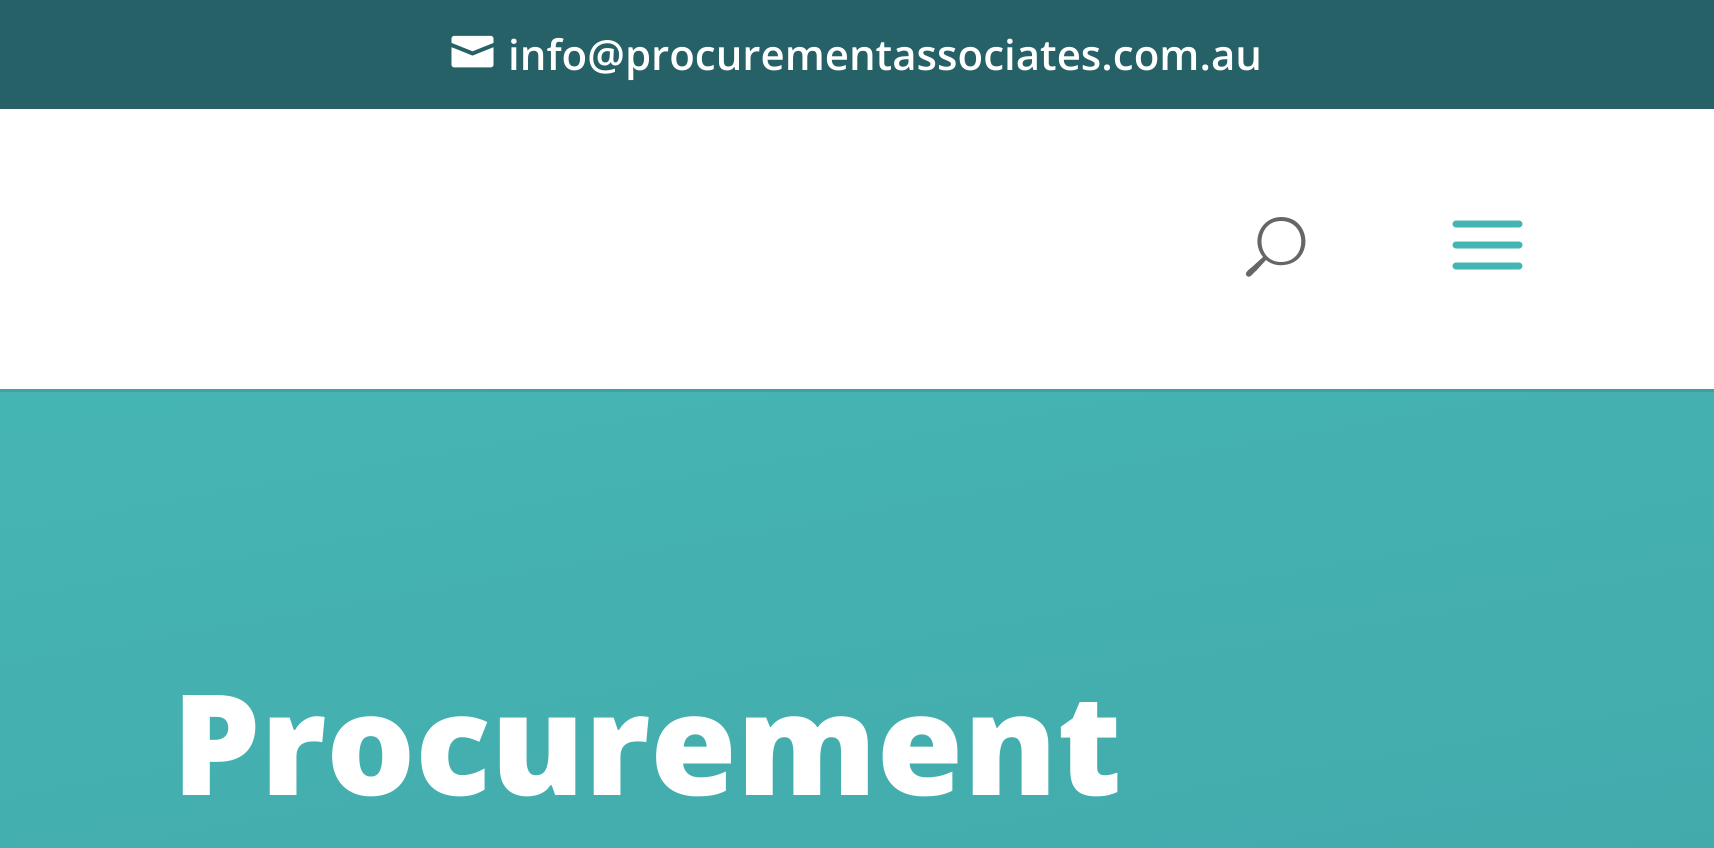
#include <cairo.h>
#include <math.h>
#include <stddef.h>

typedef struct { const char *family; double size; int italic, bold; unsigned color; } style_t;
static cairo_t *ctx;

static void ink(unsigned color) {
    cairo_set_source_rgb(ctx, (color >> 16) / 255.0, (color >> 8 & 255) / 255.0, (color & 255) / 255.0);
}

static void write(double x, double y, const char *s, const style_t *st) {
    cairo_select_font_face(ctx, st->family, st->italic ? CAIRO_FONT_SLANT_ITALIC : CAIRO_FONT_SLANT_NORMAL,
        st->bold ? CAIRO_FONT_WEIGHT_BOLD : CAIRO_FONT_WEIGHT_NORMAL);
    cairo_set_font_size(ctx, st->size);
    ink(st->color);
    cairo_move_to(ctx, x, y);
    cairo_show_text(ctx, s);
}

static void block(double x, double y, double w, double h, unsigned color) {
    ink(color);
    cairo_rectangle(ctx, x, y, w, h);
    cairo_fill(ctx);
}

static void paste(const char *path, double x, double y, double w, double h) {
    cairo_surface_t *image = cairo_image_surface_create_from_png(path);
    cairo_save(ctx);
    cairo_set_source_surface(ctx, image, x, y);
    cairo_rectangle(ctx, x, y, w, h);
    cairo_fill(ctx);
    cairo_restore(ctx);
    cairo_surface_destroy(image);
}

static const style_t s1 = {"Open Sans SemiBold", 42, 0, 0, 0xffffff};
static const style_t s2 = {"Open Sans ExtraBold", 140, 0, 0, 0xffffff};

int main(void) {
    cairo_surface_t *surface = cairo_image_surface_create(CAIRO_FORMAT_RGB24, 1714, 848);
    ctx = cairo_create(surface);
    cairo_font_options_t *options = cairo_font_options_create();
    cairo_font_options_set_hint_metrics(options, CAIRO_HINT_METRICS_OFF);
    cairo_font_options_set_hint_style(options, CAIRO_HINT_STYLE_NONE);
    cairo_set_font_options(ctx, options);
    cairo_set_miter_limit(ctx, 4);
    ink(0xffffff);
    cairo_paint(ctx);
    block(0, 0, 1714, 109, 0x266167);
    paste("pic1.png", 451, 35, 43, 33);
    write(508, 70, "info@procurementassociates.com.au", &s1);
    paste("pic3.png", 0, 389, 1714, 459);
    cairo_set_source_rgba(ctx, 0, 0, 0, 0.1);
    cairo_rectangle(ctx, 0, 389, 1714, 3);
    cairo_fill(ctx);
    ink(0x666666);
    cairo_new_path(ctx);
    cairo_move_to(ctx, 1281, 217);
    cairo_curve_to(ctx, 1261, 217, 1250, 241, 1263, 257);
    cairo_line_to(ctx, 1252, 267);
    cairo_curve_to(ctx, 1251, 268, 1243, 273, 1247, 276);
    cairo_curve_to(ctx, 1250, 279, 1254, 272, 1256, 271);
    cairo_line_to(ctx, 1266, 260);
    cairo_curve_to(ctx, 1271, 264, 1277, 266, 1284, 265);
    cairo_curve_to(ctx, 1314, 262, 1312, 217, 1281, 217);
    cairo_close_path(ctx);
    cairo_move_to(ctx, 1281, 262);
    cairo_curve_to(ctx, 1255, 262, 1255, 221, 1281, 221);
    cairo_curve_to(ctx, 1308, 221, 1308, 262, 1281, 262);
    cairo_close_path(ctx);
    cairo_fill(ctx);
    paste("pic2.png", 1452, 220, 71, 50);
    write(172, 795, "Procurement", &s2);
    cairo_surface_write_to_png(surface, "screenshot.png");
    cairo_font_options_destroy(options);
    cairo_destroy(ctx);
    cairo_surface_destroy(surface);
    return 0;
}
